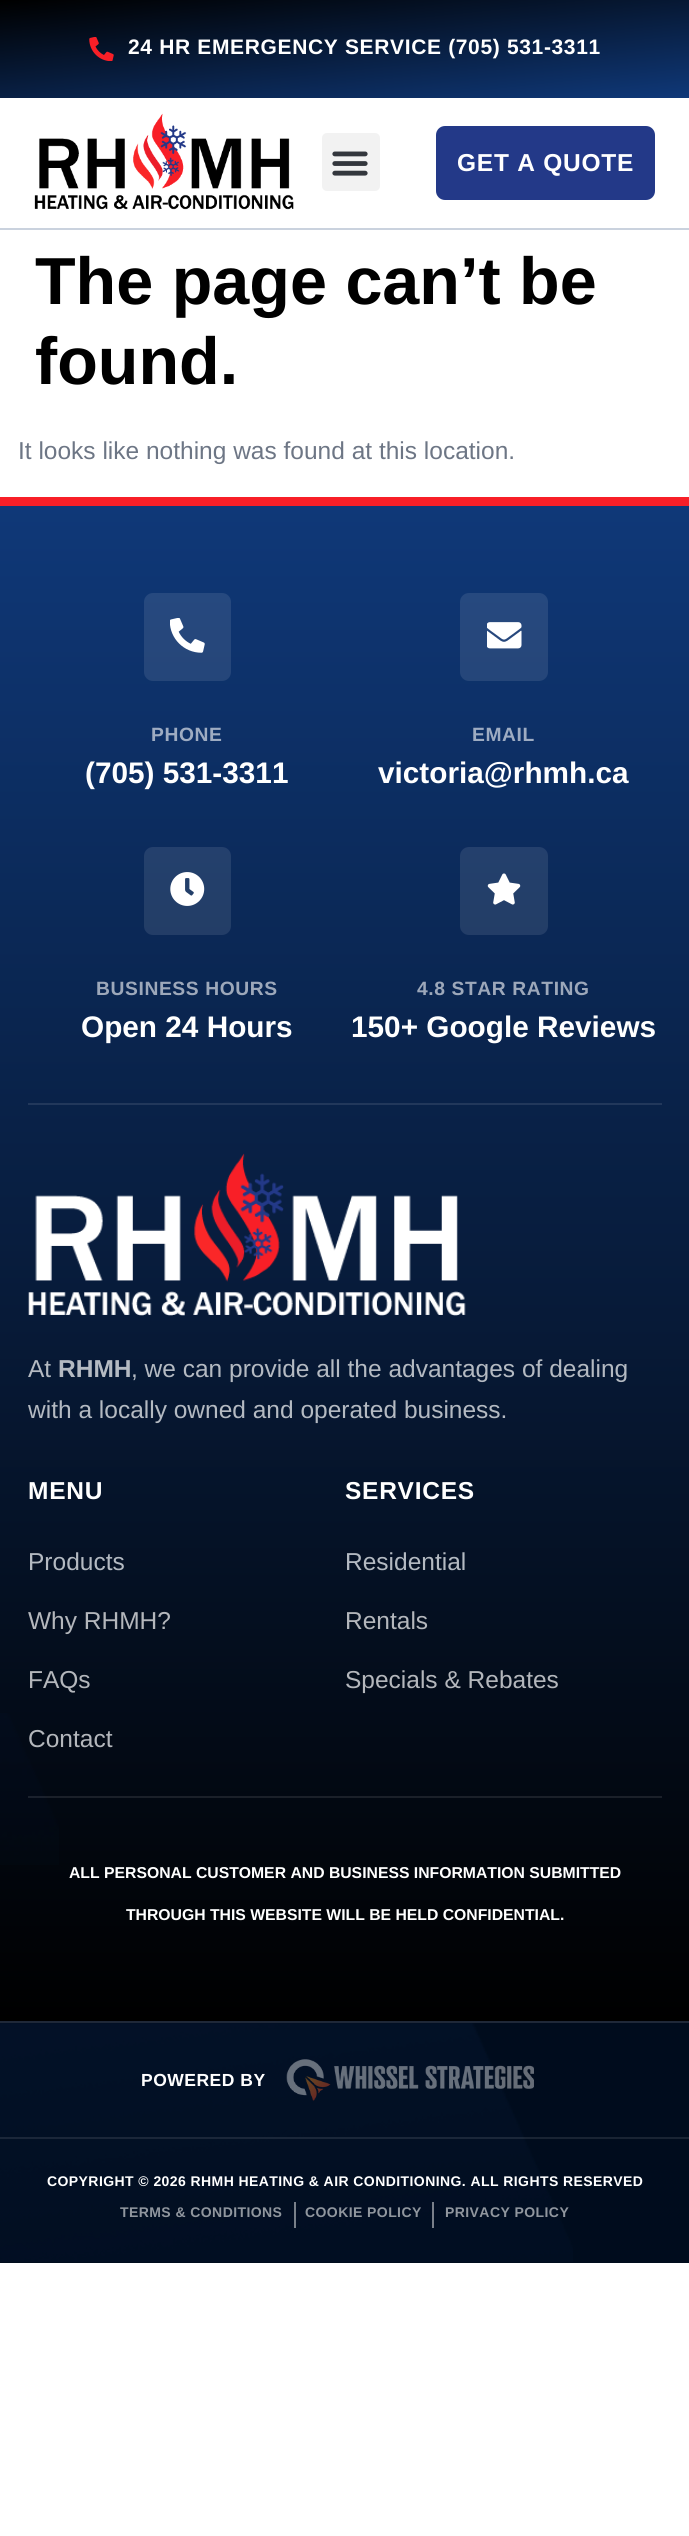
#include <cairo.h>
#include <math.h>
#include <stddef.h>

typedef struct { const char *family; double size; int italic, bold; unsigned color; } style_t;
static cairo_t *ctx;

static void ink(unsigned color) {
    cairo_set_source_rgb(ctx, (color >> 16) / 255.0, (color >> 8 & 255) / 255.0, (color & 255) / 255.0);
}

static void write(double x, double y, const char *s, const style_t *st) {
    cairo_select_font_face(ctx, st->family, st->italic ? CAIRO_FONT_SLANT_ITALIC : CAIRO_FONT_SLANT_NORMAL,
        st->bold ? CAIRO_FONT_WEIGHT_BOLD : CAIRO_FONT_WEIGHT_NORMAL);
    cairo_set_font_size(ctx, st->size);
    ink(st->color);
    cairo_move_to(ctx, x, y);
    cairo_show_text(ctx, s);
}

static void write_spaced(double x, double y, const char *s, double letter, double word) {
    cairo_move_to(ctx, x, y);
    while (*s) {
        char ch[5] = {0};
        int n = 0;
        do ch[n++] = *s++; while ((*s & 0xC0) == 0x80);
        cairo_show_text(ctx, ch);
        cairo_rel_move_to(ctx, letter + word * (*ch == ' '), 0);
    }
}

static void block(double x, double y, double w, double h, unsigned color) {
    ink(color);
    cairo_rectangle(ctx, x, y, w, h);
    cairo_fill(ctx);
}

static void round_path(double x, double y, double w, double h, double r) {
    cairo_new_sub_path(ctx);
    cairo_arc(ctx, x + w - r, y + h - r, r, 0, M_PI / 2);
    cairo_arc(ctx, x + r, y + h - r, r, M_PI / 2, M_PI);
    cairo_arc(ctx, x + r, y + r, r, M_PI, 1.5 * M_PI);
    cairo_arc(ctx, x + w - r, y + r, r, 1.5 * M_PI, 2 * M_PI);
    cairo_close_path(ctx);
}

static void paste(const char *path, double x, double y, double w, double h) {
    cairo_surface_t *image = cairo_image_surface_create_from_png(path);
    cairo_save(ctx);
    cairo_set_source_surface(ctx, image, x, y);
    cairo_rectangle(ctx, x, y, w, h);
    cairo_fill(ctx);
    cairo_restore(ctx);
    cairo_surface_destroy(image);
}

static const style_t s1 = {"Liberation Sans", 66.5, 0, 1, 0x000000};
static const style_t s2 = {"Liberation Sans", 24.5, 0, 0, 0x6d7685};
static const style_t s3 = {"Liberation Sans", 29.75, 0, 1, 0xffffff};
static const style_t s4 = {"Liberation Sans", 24.5, 0, 0, 0xb4bac2};
static const style_t s5 = {"Liberation Sans", 24.5, 0, 1, 0xb4bac2};
static const style_t s6 = {"Liberation Sans", 24.5, 0, 0, 0xb4b7bc};
static const style_t s7 = {"Liberation Sans", 15.75, 0, 1, 0xffffff};

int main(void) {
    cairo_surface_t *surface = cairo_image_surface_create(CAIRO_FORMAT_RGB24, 689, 2536);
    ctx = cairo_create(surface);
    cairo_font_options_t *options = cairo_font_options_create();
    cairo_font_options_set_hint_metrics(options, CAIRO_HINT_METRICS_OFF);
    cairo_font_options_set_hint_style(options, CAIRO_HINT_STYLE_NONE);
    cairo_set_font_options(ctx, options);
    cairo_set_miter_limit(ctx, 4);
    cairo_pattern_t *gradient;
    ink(0xffffff);
    cairo_paint(ctx);
    gradient = cairo_pattern_create_linear(336, -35, 354, 133);
    cairo_pattern_add_color_stop_rgba(gradient, 0, 0, 0, 0, 1);
    cairo_pattern_add_color_stop_rgba(gradient, 1, 0.059, 0.22, 0.471, 1);
    cairo_set_source(ctx, gradient);
    cairo_pattern_destroy(gradient);
    cairo_rectangle(ctx, 0, 0, 689, 98);
    cairo_fill(ctx);
    paste("pic1.png", 89, 37, 25, 24);
    cairo_select_font_face(ctx, "Liberation Sans", CAIRO_FONT_SLANT_NORMAL, CAIRO_FONT_WEIGHT_BOLD);
    cairo_set_font_size(ctx, 21);
    ink(0xffffff);
    write_spaced(128, 54, "24 HR EMERGENCY SERVICE (705) 531-3311", 0.65, 0);
    block(0, 228, 689, 2, 0xcad2de);
    paste("pic2.png", 34, 113, 260, 97);
    ink(0xf2f2f2);
    round_path(322, 133, 58, 58, 5);
    cairo_fill(ctx);
    paste("pic3.png", 332, 151, 36, 25);
    ink(0x233988);
    round_path(436, 126, 219, 74, 9);
    cairo_fill(ctx);
    cairo_set_font_size(ctx, 24.5);
    ink(0xffffff);
    write_spaced(457, 171, "GET A QUOTE", 0.75, 0);
    write(35, 304, "The page can’t be", &s1);
    write(35, 384, "found.", &s1);
    write(18, 459, "It looks like nothing was found at this location.", &s2);
    gradient = cairo_pattern_create_linear(345, 506, 345, 2021);
    cairo_pattern_add_color_stop_rgba(gradient, 0, 0.059, 0.22, 0.471, 1);
    cairo_pattern_add_color_stop_rgba(gradient, 1, 0, 0, 0, 1);
    cairo_set_source(ctx, gradient);
    cairo_pattern_destroy(gradient);
    cairo_rectangle(ctx, 0, 506, 689, 1515);
    cairo_fill(ctx);
    block(0, 497, 689, 9, 0xf81f27);
    cairo_set_source_rgba(ctx, 1, 1, 1, 0.1);
    round_path(144, 593, 87, 88, 9);
    cairo_fill(ctx);
    paste("pic4.png", 170, 618, 35, 35);
    cairo_select_font_face(ctx, "Liberation Sans", CAIRO_FONT_SLANT_NORMAL, CAIRO_FONT_WEIGHT_BOLD);
    cairo_set_font_size(ctx, 19.25);
    ink(0x9eacc2);
    write_spaced(151, 741, "PHONE", 0.6, 0);
    write(85, 783, "(705) 531-3311", &s3);
    cairo_set_source_rgba(ctx, 1, 1, 1, 0.1);
    round_path(460, 593, 88, 88, 9);
    cairo_fill(ctx);
    paste("pic5.png", 487, 622, 35, 27);
    cairo_set_font_size(ctx, 19.25);
    ink(0x9eacc2);
    write_spaced(472, 741, "EMAIL", 0.6, 0);
    write(378, 783, "victoria@rhmh.ca", &s3);
    cairo_set_source_rgba(ctx, 1, 1, 1, 0.1);
    round_path(144, 847, 87, 88, 9);
    cairo_fill(ctx);
    paste("pic6.png", 170, 872, 35, 34);
    cairo_set_font_size(ctx, 19.25);
    ink(0x9da8ba);
    write_spaced(96, 995, "BUSINESS HOURS", 0.6, 0);
    write(81, 1037, "Open 24 Hours", &s3);
    cairo_set_source_rgba(ctx, 1, 1, 1, 0.1);
    round_path(460, 847, 88, 88, 9);
    cairo_fill(ctx);
    paste("pic7.png", 487, 873, 34, 32);
    cairo_set_font_size(ctx, 19.25);
    ink(0x9da8ba);
    write_spaced(417, 995, "4.8 STAR RATING", 0.6, 0);
    write(351, 1037, "150+ Google Reviews", &s3);
    block(28, 1103, 634, 2, 0x22385b);
    paste("pic9.png", 0, 1713, 59, 152);
    cairo_set_source_rgba(ctx, 1, 1, 1, 0.1);
    cairo_rectangle(ctx, 28, 1796, 634, 2);
    cairo_fill(ctx);
    paste("pic8.png", 28, 1153, 438, 163);
    write(28, 1377, "At", &s4);
    write(58, 1377, "RHMH", &s5);
    write(131, 1377, ", we can provide all the advantages of dealing", &s4);
    write(28, 1418, "with a locally owned and operated business.", &s4);
    cairo_select_font_face(ctx, "Liberation Sans", CAIRO_FONT_SLANT_NORMAL, CAIRO_FONT_WEIGHT_BOLD);
    ink(0xffffff);
    write_spaced(28, 1499, "MENU", 0.75, 0);
    write(28, 1570, "Products", &s4);
    write(28, 1629, "Why RHMH?", &s6);
    write(28, 1688, "FAQs", &s6);
    write(28, 1747, "Contact", &s6);
    cairo_select_font_face(ctx, "Liberation Sans", CAIRO_FONT_SLANT_NORMAL, CAIRO_FONT_WEIGHT_BOLD);
    ink(0xffffff);
    write_spaced(345, 1499, "SERVICES", 0.75, 0);
    write(345, 1570, "Residential", &s4);
    write(345, 1629, "Rentals", &s6);
    write(345, 1688, "Specials & Rebates", &s6);
    write(69, 1878, "ALL PERSONAL CUSTOMER AND BUSINESS INFORMATION SUBMITTED", &s7);
    write(126, 1920, "THROUGH THIS WEBSITE WILL BE HELD CONFIDENTIAL.", &s7);
    block(0, 2023, 689, 240, 0x000c1d);
    paste("pic10.png", 0, 2023, 573, 239);
    block(0, 2021, 689, 2, 0x1f2838);
    cairo_set_source_rgba(ctx, 1, 1, 1, 0.1);
    cairo_rectangle(ctx, 0, 2137, 689, 2);
    cairo_fill(ctx);
    cairo_set_font_size(ctx, 17.5);
    ink(0xffffff);
    write_spaced(141, 2086, "POWERED BY", 0.5, 0);
    paste("pic11.png", 286, 2059, 248, 42);
    cairo_set_font_size(ctx, 14);
    write_spaced(47, 2186, "COPYRIGHT © 2026 RHMH HEATING & AIR CONDITIONING. ALL RIGHTS RESERVED", 0.42, 0);
    ink(0x90969e);
    write_spaced(120, 2217, "TERMS & CONDITIONS", 0.42, 0);
    block(294, 2202, 2, 26, 0x79808a);
    ink(0x90969e);
    write_spaced(305, 2217, "COOKIE POLICY", 0.42, 0);
    block(432, 2202, 2, 26, 0x797f8a);
    ink(0x90969e);
    write_spaced(445, 2217, "PRIVACY POLICY", 0.42, 0);
    cairo_surface_write_to_png(surface, "screenshot.png");
    cairo_font_options_destroy(options);
    cairo_destroy(ctx);
    cairo_surface_destroy(surface);
    return 0;
}
